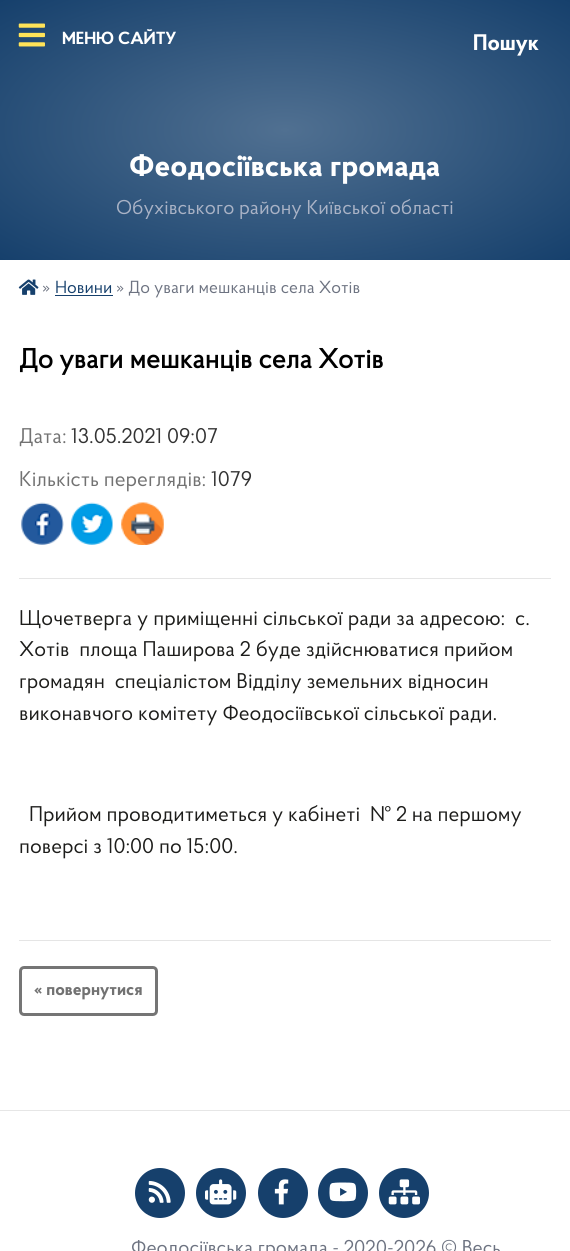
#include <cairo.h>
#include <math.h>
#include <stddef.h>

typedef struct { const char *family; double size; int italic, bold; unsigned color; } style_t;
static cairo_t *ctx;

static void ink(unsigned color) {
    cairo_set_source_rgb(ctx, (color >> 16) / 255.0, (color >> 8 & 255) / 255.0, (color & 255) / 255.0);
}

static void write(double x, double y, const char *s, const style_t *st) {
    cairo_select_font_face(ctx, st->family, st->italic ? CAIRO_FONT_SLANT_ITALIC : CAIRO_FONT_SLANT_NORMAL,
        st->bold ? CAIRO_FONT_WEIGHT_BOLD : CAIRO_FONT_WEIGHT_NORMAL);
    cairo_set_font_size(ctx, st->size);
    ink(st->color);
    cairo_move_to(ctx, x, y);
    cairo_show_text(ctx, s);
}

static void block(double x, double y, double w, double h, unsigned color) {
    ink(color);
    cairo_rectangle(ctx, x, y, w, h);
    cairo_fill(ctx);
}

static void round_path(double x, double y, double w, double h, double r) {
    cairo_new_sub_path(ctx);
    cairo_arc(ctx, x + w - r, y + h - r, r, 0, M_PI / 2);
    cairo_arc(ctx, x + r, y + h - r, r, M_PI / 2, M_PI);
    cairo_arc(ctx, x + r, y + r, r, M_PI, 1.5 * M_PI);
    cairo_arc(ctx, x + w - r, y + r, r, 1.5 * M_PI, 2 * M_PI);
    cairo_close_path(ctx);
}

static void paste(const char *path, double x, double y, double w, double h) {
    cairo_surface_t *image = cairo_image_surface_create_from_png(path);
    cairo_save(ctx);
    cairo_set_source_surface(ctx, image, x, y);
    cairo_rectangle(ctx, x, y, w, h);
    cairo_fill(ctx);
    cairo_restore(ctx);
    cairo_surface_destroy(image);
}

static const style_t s1 = {"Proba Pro", 17.5, 0, 1, 0xffffff};
static const style_t s2 = {"Proba Pro", 22.5, 0, 1, 0xffffff};
static const style_t s3 = {"Proba Pro", 31.25, 0, 1, 0xffffff};
static const style_t s4 = {"Proba Pro", 20, 0, 0, 0xaab3c6};
static const style_t s5 = {"Proba Pro", 17.5, 0, 0, 0x6d7381};
static const style_t s6 = {"Proba Pro", 17.5, 0, 0, 0x16406c};
static const style_t s7 = {"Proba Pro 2", 27.5, 0, 1, 0x000000};
static const style_t s8 = {"Proba Pro", 21.25, 0, 0, 0x727272};
static const style_t s9 = {"Proba Pro", 21.25, 0, 0, 0x333333};
static const style_t s10 = {"Proba Pro", 21.25, 0, 0, 0x1d1d1b};
static const style_t s11 = {"Proba Pro", 17.5, 0, 1, 0x727272};
static const style_t s12 = {"Proba Pro", 20, 0, 0, 0x6d7381};

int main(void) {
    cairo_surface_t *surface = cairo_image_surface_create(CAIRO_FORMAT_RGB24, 570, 1251);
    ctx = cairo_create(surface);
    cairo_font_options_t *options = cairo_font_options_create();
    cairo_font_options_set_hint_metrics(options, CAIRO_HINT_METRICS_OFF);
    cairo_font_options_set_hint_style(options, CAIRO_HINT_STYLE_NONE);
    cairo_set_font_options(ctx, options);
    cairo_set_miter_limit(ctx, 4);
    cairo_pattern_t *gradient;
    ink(0xffffff);
    cairo_paint(ctx);
    gradient = cairo_pattern_create_radial(0, 0, 0, 0, 0, 1);
    cairo_pattern_set_matrix(gradient, &(cairo_matrix_t){1.0 / 403, 0, 0, 1.0 / 184, -1.0 * 285 / 403, -1.0 * 130 / 184});
    cairo_pattern_add_color_stop_rgba(gradient, 0, 0.314, 0.439, 0.569, 1);
    cairo_pattern_add_color_stop_rgba(gradient, 1, 0.086, 0.251, 0.424, 1);
    cairo_set_source(ctx, gradient);
    cairo_pattern_destroy(gradient);
    cairo_rectangle(ctx, 0, 0, 570, 260);
    cairo_fill(ctx);
    paste("pic1.png", 18, 23, 27, 24);
    write(62, 44, "МЕНЮ САЙТУ", &s1);
    write(473, 50, "Пошук", &s2);
    write(129, 176, "Феодосіївська громада", &s3);
    write(116, 214, "Обухівського району Київської області", &s4);
    paste("pic2.png", 18, 279, 21, 16);
    write(42, 293, "»", &s5);
    write(55, 293, "Новини", &s6);
    block(55, 295, 58, 1, 0x16406c);
    write(116, 293, "» До уваги мешканців села Хотів", &s5);
    write(19, 368, "До уваги мешканців села Хотів", &s7);
    write(19, 443, "Дата:", &s8);
    write(71, 443, "13.05.2021 09:07", &s9);
    write(19, 486, "Кількість переглядів:", &s8);
    write(211, 486, "1079", &s9);
    paste("pic3.png", 21, 502, 43, 43);
    paste("pic4.png", 71, 502, 42, 43);
    paste("pic5.png", 121, 502, 43, 43);
    block(19, 578, 532, 1, 0xe5e5e5);
    write(19, 625, "Щочетверга у приміщенні сільської ради за адресою:  с.", &s10);
    write(19, 656, "Хотів  площа Паширова 2 буде здійснюватися прийом", &s10);
    write(19, 688, "громадян  спеціалістом Відділу земельних відносин", &s10);
    write(19, 720, "виконавчого комітету Феодосіївської сільської ради.", &s10);
    write(29, 821, "Прийом проводитиметься у кабінеті  № 2 на першому", &s10);
    write(19, 853, "поверсі з 10:00 по 15:00.", &s10);
    block(19, 940, 532, 1, 0xe5e5e5);
    round_path(20.5, 967.5, 136, 47, 3.5);
    ink(0x757575);
    cairo_set_line_width(ctx, 3);
    cairo_stroke(ctx);
    write(34, 995, "« повернутися", &s11);
    block(0, 1110, 570, 1, 0xe6e6e6);
    ink(0x16406c);
    cairo_new_path(ctx);
    cairo_arc(ctx, 160, 1193, 25, 0, 2 * M_PI);
    cairo_fill(ctx);
    paste("pic6.png", 148, 1180, 23, 23);
    cairo_arc(ctx, 221, 1193, 25, 0, 2 * M_PI);
    cairo_fill(ctx);
    paste("pic7.png", 205, 1179, 32, 26);
    cairo_arc(ctx, 283, 1193, 25, 0, 2 * M_PI);
    cairo_fill(ctx);
    paste("pic8.png", 274, 1179, 15, 26);
    cairo_arc(ctx, 343, 1193, 25, 0, 2 * M_PI);
    cairo_fill(ctx);
    paste("pic9.png", 329, 1182, 28, 20);
    cairo_arc(ctx, 404, 1193, 25, 0, 2 * M_PI);
    cairo_fill(ctx);
    paste("pic10.png", 388, 1179, 32, 26);
    write(131, 1254, "Феодосіївська громада - 2020-2026 © Весь", &s12);
    cairo_surface_write_to_png(surface, "screenshot.png");
    cairo_font_options_destroy(options);
    cairo_destroy(ctx);
    cairo_surface_destroy(surface);
    return 0;
}
